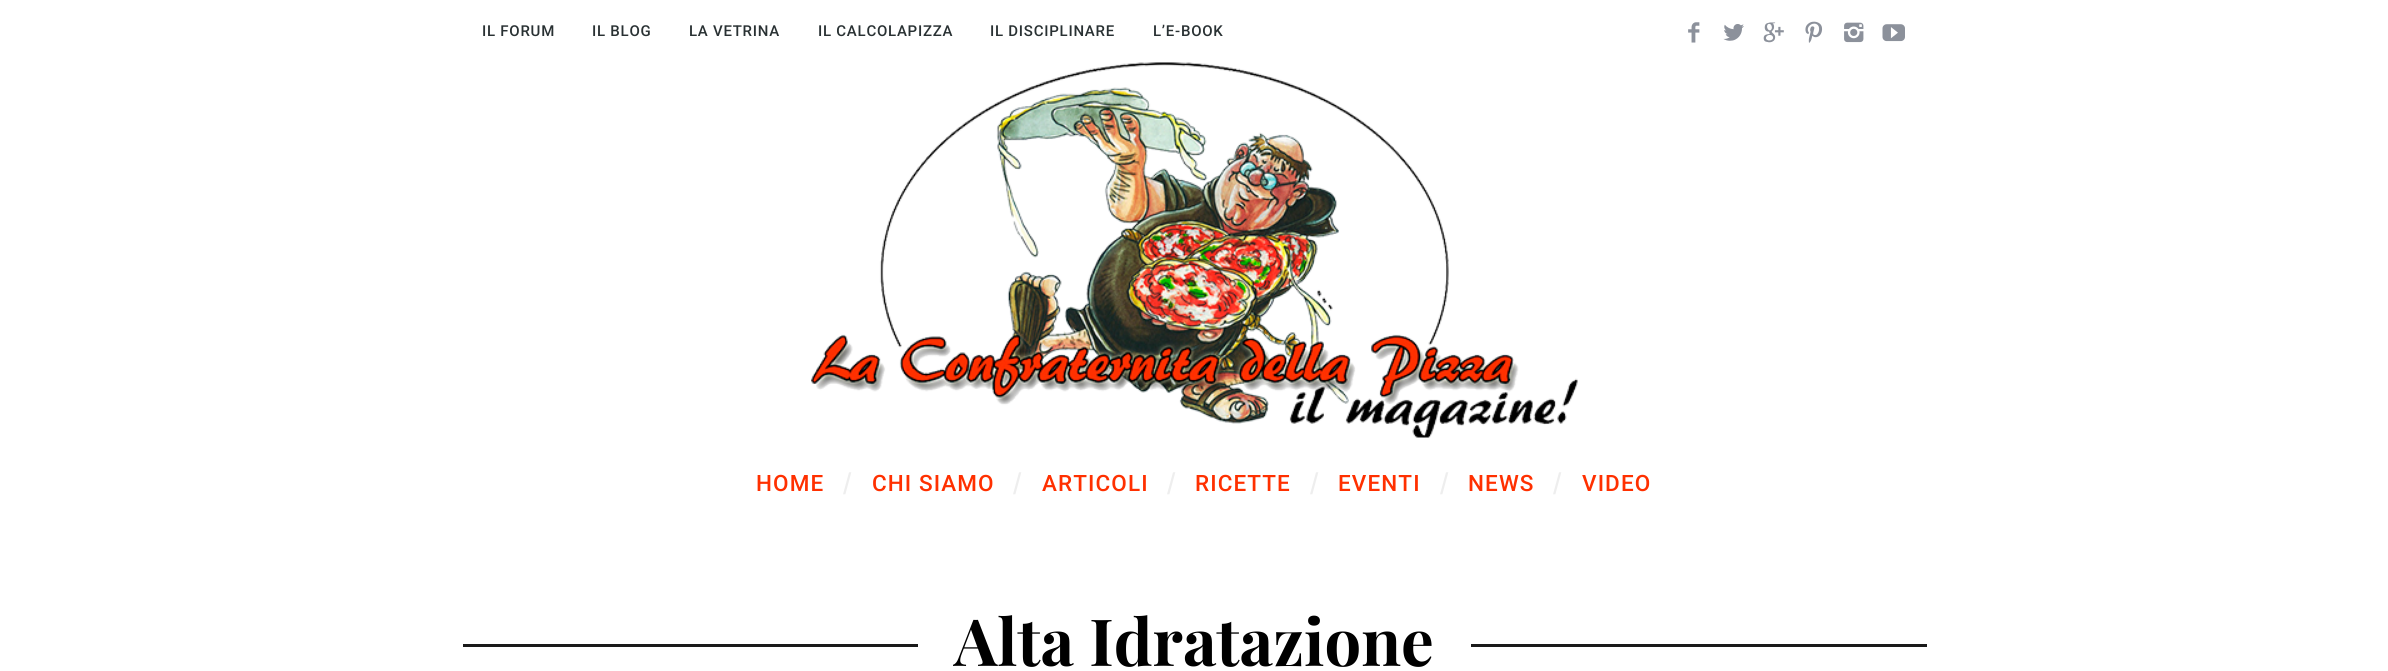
#include <cairo.h>
#include <math.h>
#include <stddef.h>

typedef struct { const char *family; double size; int italic, bold; unsigned color; } style_t;
static cairo_t *ctx;

static void ink(unsigned color) {
    cairo_set_source_rgb(ctx, (color >> 16) / 255.0, (color >> 8 & 255) / 255.0, (color & 255) / 255.0);
}

static void write(double x, double y, const char *s, const style_t *st) {
    cairo_select_font_face(ctx, st->family, st->italic ? CAIRO_FONT_SLANT_ITALIC : CAIRO_FONT_SLANT_NORMAL,
        st->bold ? CAIRO_FONT_WEIGHT_BOLD : CAIRO_FONT_WEIGHT_NORMAL);
    cairo_set_font_size(ctx, st->size);
    ink(st->color);
    cairo_move_to(ctx, x, y);
    cairo_show_text(ctx, s);
}

static void write_spaced(double x, double y, const char *s, double letter, double word) {
    cairo_move_to(ctx, x, y);
    while (*s) {
        char ch[5] = {0};
        int n = 0;
        do ch[n++] = *s++; while ((*s & 0xC0) == 0x80);
        cairo_show_text(ctx, ch);
        cairo_rel_move_to(ctx, letter + word * (*ch == ' '), 0);
    }
}

static void block(double x, double y, double w, double h, unsigned color) {
    ink(color);
    cairo_rectangle(ctx, x, y, w, h);
    cairo_fill(ctx);
}

static void paste(const char *path, double x, double y, double w, double h) {
    cairo_surface_t *image = cairo_image_surface_create_from_png(path);
    cairo_save(ctx);
    cairo_set_source_surface(ctx, image, x, y);
    cairo_rectangle(ctx, x, y, w, h);
    cairo_fill(ctx);
    cairo_restore(ctx);
    cairo_surface_destroy(image);
}

static const style_t s1 = {"Playfair Display", 65, 0, 1, 0x000000};

int main(void) {
    cairo_surface_t *surface = cairo_image_surface_create(CAIRO_FORMAT_RGB24, 2388, 671);
    ctx = cairo_create(surface);
    cairo_font_options_t *options = cairo_font_options_create();
    cairo_font_options_set_hint_metrics(options, CAIRO_HINT_METRICS_OFF);
    cairo_font_options_set_hint_style(options, CAIRO_HINT_STYLE_NONE);
    cairo_set_font_options(ctx, options);
    cairo_set_miter_limit(ctx, 4);
    ink(0xffffff);
    cairo_paint(ctx);
    cairo_select_font_face(ctx, "Roboto Medium", CAIRO_FONT_SLANT_NORMAL, CAIRO_FONT_WEIGHT_NORMAL);
    cairo_set_font_size(ctx, 15);
    ink(0x293133);
    write_spaced(482, 36, "IL FORUM", 0.75, 0);
    write_spaced(592, 36, "IL BLOG", 0.75, 0);
    write_spaced(689, 36, "LA VETRINA", 0.75, 0);
    write_spaced(818, 36, "IL CALCOLAPIZZA", 0.75, 0);
    write_spaced(990, 36, "IL DISCIPLINARE", 0.75, 0);
    write_spaced(1153, 36, "L’E-BOOK", 0.75, 0);
    paste("pic1.png", 1688, 22, 12, 21);
    paste("pic2.png", 1723, 24, 21, 17);
    paste("pic3.png", 1763, 22, 21, 21);
    paste("pic4.png", 1805, 21, 18, 22);
    paste("pic5.png", 1844, 22, 20, 21);
    paste("pic6.png", 1882, 24, 23, 18);
    paste("pic7.png", 811, 62, 767, 376);
    cairo_set_font_size(ctx, 22.5);
    ink(0xff3000);
    write_spaced(756, 491, "HOME", 1.1, 0);
    cairo_select_font_face(ctx, "Liberation Sans", CAIRO_FONT_SLANT_NORMAL, CAIRO_FONT_WEIGHT_NORMAL);
    cairo_set_font_size(ctx, 30);
    ink(0xeeeeee);
    write_spaced(843, 494, "/", 1.1, 0);
    cairo_select_font_face(ctx, "Roboto Medium", CAIRO_FONT_SLANT_NORMAL, CAIRO_FONT_WEIGHT_NORMAL);
    cairo_set_font_size(ctx, 22.5);
    ink(0xff3000);
    write_spaced(872, 491, "CHI SIAMO", 1.1, 0);
    cairo_select_font_face(ctx, "Liberation Sans", CAIRO_FONT_SLANT_NORMAL, CAIRO_FONT_WEIGHT_NORMAL);
    cairo_set_font_size(ctx, 30);
    ink(0xeeeeee);
    write_spaced(1013, 494, "/", 1.1, 0);
    cairo_select_font_face(ctx, "Roboto Medium", CAIRO_FONT_SLANT_NORMAL, CAIRO_FONT_WEIGHT_NORMAL);
    cairo_set_font_size(ctx, 22.5);
    ink(0xff3000);
    write_spaced(1042, 491, "ARTICOLI", 1.1, 0);
    cairo_select_font_face(ctx, "Liberation Sans", CAIRO_FONT_SLANT_NORMAL, CAIRO_FONT_WEIGHT_NORMAL);
    cairo_set_font_size(ctx, 30);
    ink(0xeeeeee);
    write_spaced(1167, 494, "/", 1.1, 0);
    cairo_select_font_face(ctx, "Roboto Medium", CAIRO_FONT_SLANT_NORMAL, CAIRO_FONT_WEIGHT_NORMAL);
    cairo_set_font_size(ctx, 22.5);
    ink(0xff3000);
    write_spaced(1195, 491, "RICETTE", 1.1, 0);
    cairo_select_font_face(ctx, "Liberation Sans", CAIRO_FONT_SLANT_NORMAL, CAIRO_FONT_WEIGHT_NORMAL);
    cairo_set_font_size(ctx, 30);
    ink(0xeeeeee);
    write_spaced(1310, 494, "/", 1.1, 0);
    cairo_select_font_face(ctx, "Roboto Medium", CAIRO_FONT_SLANT_NORMAL, CAIRO_FONT_WEIGHT_NORMAL);
    cairo_set_font_size(ctx, 22.5);
    ink(0xff3000);
    write_spaced(1338, 491, "EVENTI", 1.1, 0);
    cairo_select_font_face(ctx, "Liberation Sans", CAIRO_FONT_SLANT_NORMAL, CAIRO_FONT_WEIGHT_NORMAL);
    cairo_set_font_size(ctx, 30);
    ink(0xeeeeee);
    write_spaced(1440, 494, "/", 1.1, 0);
    cairo_select_font_face(ctx, "Roboto Medium", CAIRO_FONT_SLANT_NORMAL, CAIRO_FONT_WEIGHT_NORMAL);
    cairo_set_font_size(ctx, 22.5);
    ink(0xff3000);
    write_spaced(1468, 491, "NEWS", 1.1, 0);
    cairo_select_font_face(ctx, "Liberation Sans", CAIRO_FONT_SLANT_NORMAL, CAIRO_FONT_WEIGHT_NORMAL);
    cairo_set_font_size(ctx, 30);
    ink(0xeeeeee);
    write_spaced(1553, 494, "/", 1.1, 0);
    cairo_select_font_face(ctx, "Roboto Medium", CAIRO_FONT_SLANT_NORMAL, CAIRO_FONT_WEIGHT_NORMAL);
    cairo_set_font_size(ctx, 22.5);
    ink(0xff3000);
    write_spaced(1582, 491, "VIDEO", 1.1, 0);
    block(463, 644, 1464, 3, 0x1a1a1a);
    block(918, 644, 553, 3, 0xffffff);
    write(954, 666, "Alta Idratazione", &s1);
    cairo_surface_write_to_png(surface, "screenshot.png");
    cairo_font_options_destroy(options);
    cairo_destroy(ctx);
    cairo_surface_destroy(surface);
    return 0;
}
